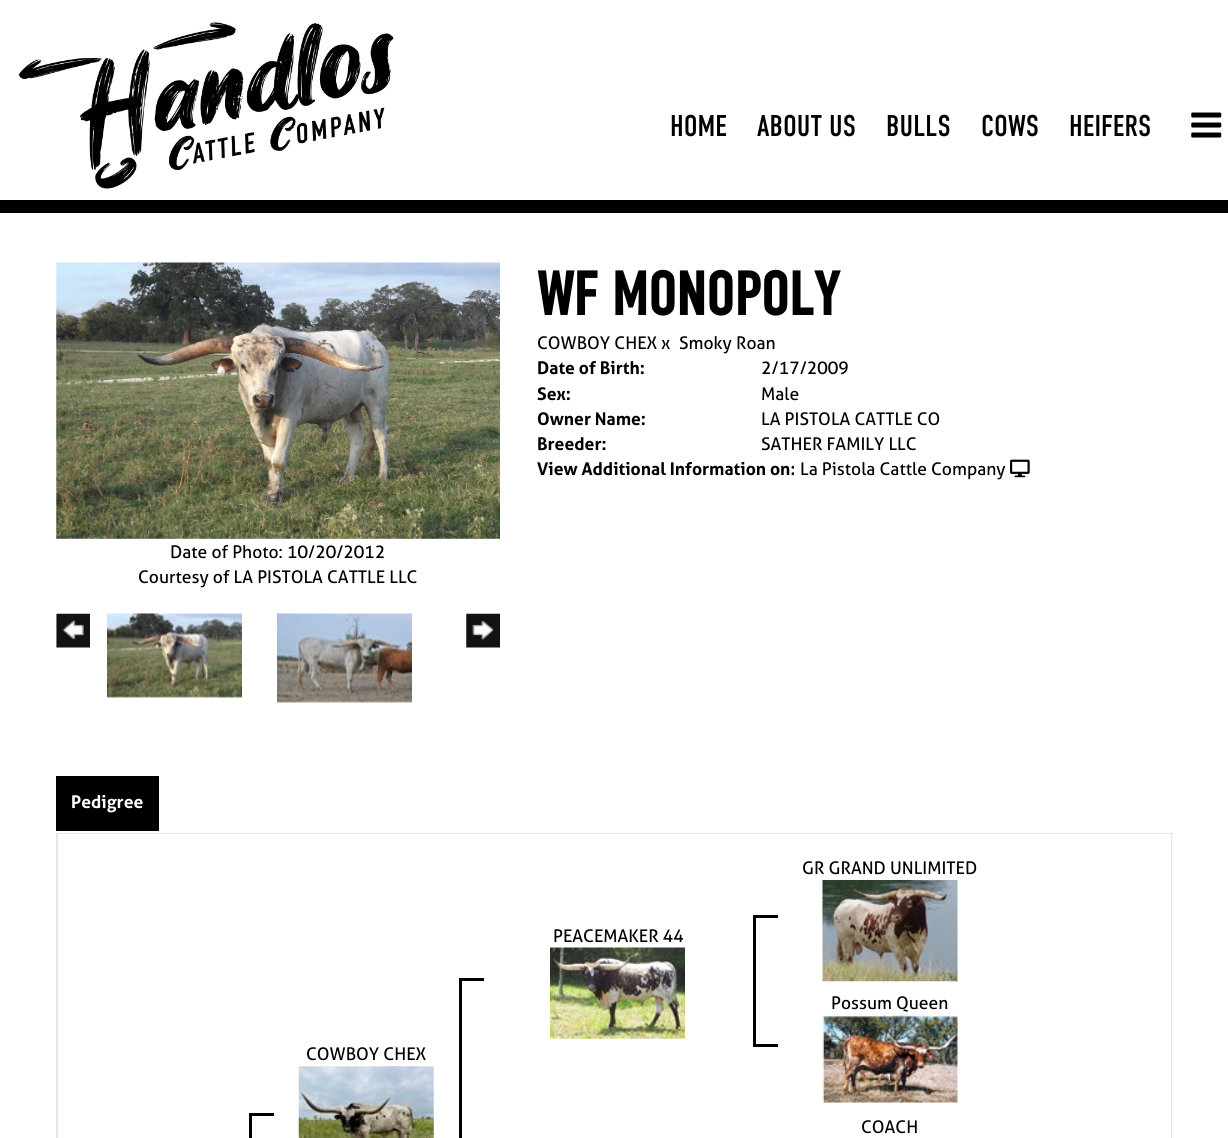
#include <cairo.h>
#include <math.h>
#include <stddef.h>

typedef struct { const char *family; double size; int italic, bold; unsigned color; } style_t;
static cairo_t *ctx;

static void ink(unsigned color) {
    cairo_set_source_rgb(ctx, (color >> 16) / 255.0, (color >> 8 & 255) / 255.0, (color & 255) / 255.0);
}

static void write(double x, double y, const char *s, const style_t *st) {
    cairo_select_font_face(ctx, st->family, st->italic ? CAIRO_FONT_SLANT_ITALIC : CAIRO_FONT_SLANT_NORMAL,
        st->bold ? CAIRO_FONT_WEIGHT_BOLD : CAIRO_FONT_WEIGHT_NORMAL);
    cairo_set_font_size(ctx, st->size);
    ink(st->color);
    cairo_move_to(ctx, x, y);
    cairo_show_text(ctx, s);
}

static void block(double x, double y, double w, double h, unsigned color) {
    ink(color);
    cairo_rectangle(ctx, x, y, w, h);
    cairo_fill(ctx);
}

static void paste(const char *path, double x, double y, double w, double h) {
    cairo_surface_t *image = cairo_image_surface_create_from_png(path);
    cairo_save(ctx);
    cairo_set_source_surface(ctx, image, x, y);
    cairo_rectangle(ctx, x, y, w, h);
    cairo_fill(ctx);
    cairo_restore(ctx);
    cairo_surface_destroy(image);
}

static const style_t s1 = {"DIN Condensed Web", 30, 0, 0, 0x000000};
static const style_t s2 = {"DIN Condensed Web", 61.25, 0, 1, 0x000000};
static const style_t s3 = {"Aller", 17.5, 0, 0, 0x000000};
static const style_t s4 = {"Aller", 17.5, 0, 1, 0x000000};
static const style_t s5 = {"Aller", 17.5, 0, 1, 0xffffff};

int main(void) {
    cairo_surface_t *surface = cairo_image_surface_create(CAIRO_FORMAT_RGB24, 1228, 1138);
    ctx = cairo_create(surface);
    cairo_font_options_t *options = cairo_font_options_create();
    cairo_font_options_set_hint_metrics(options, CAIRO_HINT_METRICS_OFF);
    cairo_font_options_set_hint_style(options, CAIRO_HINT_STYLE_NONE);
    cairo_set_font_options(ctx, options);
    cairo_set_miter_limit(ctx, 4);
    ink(0xffffff);
    cairo_paint(ctx);
    block(0, 200, 1228, 13, 0x000000);
    paste("pic1.png", 18, 22, 376, 167);
    write(670, 136, "HOME", &s1);
    write(757, 136, "ABOUT US", &s1);
    write(886, 136, "BULLS", &s1);
    write(981, 136, "COWS", &s1);
    write(1069, 136, "HEIFERS", &s1);
    paste("pic2.png", 1191, 112, 31, 26);
    write(537, 315, "WF MONOPOLY", &s2);
    write(537, 349, "COWBOY CHEX x", &s3);
    write(679, 349, "Smoky Roan", &s3);
    write(537, 374, "Date of Birth:", &s4);
    write(761, 374, "2/17/2009", &s3);
    write(537, 400, "Sex:", &s4);
    write(761, 400, "Male", &s3);
    write(537, 425, "Owner Name:", &s4);
    write(761, 425, "LA PISTOLA CATTLE CO", &s3);
    write(537, 450, "Breeder:", &s4);
    write(761, 450, "SATHER FAMILY LLC", &s3);
    write(537, 475, "View Additional Information on:", &s4);
    write(800, 475, "La Pistola Cattle Company", &s3);
    paste("pic3.png", 1010, 459, 20, 19);
    paste("pic4.png", 56, 262, 444, 277);
    write(170, 558, "Date of Photo: 10/20/2012", &s3);
    write(138, 583, "Courtesy of LA PISTOLA CATTLE LLC", &s3);
    paste("pic5.png", 56, 613, 34, 35);
    paste("pic6.png", 107, 613, 135, 85);
    paste("pic7.png", 277, 613, 135, 90);
    paste("pic8.png", 466, 613, 34, 35);
    block(56, 833, 1117, 1, 0xe5e5e5);
    block(56, 776, 103, 55, 0x000000);
    write(71, 808, "Pedigree", &s5);
    ink(0xe5e5e5);
    cairo_new_path(ctx);
    cairo_move_to(ctx, 1172, 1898);
    cairo_line_to(ctx, 1172, 834);
    cairo_line_to(ctx, 1171, 834);
    cairo_line_to(ctx, 1171, 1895);
    cairo_close_path(ctx);
    cairo_fill(ctx);
    cairo_new_path(ctx);
    cairo_move_to(ctx, 58, 834);
    cairo_line_to(ctx, 58, 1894);
    cairo_line_to(ctx, 57, 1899);
    cairo_line_to(ctx, 56, 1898);
    cairo_line_to(ctx, 56, 834);
    cairo_close_path(ctx);
    cairo_fill(ctx);
    write(802, 874, "GR GRAND UNLIMITED", &s3);
    paste("pic9.png", 822, 880, 136, 102);
    write(553, 942, "PEACEMAKER 44", &s3);
    paste("pic10.png", 550, 947, 135, 92);
    block(753, 915, 25, 3, 0x000000);
    block(753, 1044, 25, 3, 0x000000);
    block(753, 915, 3, 131, 0x000000);
    write(306, 1060, "COWBOY CHEX", &s3);
    paste("pic11.png", 298, 1066, 136, 72);
    block(459, 978, 25, 3, 0x000000);
    block(459, 978, 3, 160, 0x000000);
    block(249, 1113, 25, 3, 0x000000);
    block(249, 1113, 3, 25, 0x000000);
    write(831, 1009, "Possum Queen", &s3);
    paste("pic12.png", 822, 1015, 136, 88);
    write(861, 1133, "COACH", &s3);
    cairo_surface_write_to_png(surface, "screenshot.png");
    cairo_font_options_destroy(options);
    cairo_destroy(ctx);
    cairo_surface_destroy(surface);
    return 0;
}
